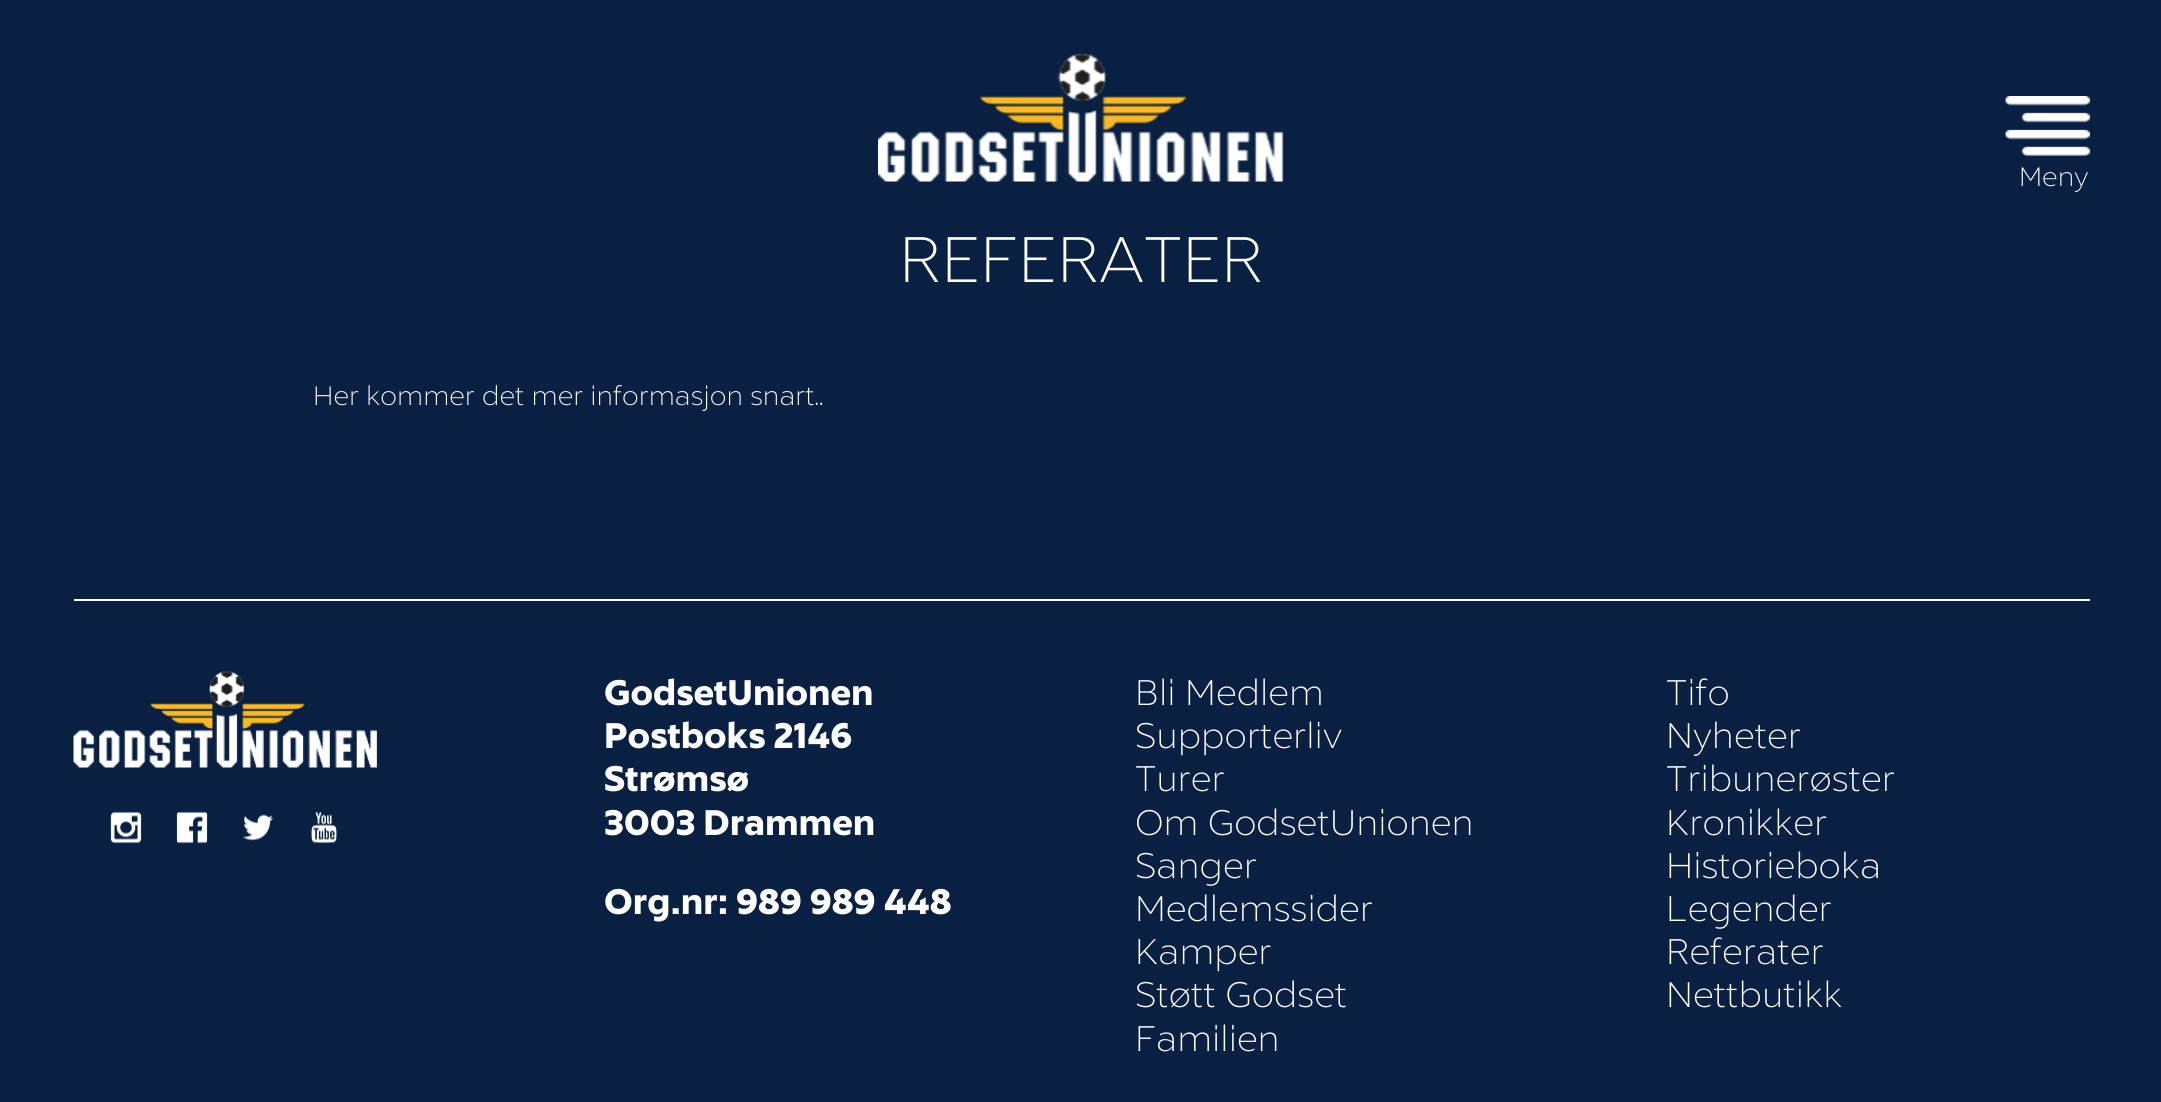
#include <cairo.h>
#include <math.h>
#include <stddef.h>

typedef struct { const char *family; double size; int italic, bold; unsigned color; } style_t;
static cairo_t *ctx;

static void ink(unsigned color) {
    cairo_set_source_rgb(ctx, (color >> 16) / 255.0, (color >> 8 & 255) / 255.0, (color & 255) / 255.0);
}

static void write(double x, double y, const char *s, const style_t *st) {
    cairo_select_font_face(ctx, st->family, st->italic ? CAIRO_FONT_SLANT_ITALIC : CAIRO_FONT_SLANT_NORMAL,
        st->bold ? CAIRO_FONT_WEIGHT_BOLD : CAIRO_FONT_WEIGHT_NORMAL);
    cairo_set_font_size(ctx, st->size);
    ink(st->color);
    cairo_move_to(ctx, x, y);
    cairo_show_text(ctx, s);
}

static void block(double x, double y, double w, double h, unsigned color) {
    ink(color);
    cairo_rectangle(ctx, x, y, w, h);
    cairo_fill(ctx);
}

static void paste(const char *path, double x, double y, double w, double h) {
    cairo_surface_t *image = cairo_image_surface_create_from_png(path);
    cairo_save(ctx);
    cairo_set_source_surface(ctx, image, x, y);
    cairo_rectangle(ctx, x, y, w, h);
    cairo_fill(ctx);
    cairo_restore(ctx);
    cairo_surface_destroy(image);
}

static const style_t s1 = {"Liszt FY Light", 27, 0, 0, 0xffffff};
static const style_t s2 = {"Liszt FY Light", 65, 0, 0, 0xffffff};
static const style_t s3 = {"Liszt FY Black", 36, 0, 0, 0xffffff};
static const style_t s4 = {"Liszt FY Light", 36, 0, 0, 0xffffff};

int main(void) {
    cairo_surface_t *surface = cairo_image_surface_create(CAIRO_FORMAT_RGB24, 2161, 1102);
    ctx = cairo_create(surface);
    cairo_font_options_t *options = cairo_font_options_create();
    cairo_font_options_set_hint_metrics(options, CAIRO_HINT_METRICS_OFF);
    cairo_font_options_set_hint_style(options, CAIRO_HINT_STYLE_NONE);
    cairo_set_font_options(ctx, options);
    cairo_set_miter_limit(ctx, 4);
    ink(0x092042);
    cairo_paint(ctx);
    paste("pic1.png", 878, 54, 406, 128);
    paste("pic2.png", 2005, 96, 85, 60);
    write(2019, 186, "Meny", &s1);
    write(899, 282, "REFERATER", &s2);
    write(313, 405, "Her kommer det mer informasjon snart..", &s1);
    block(74, 599, 2016, 2, 0xffffff);
    paste("pic3.png", 73, 671, 304, 97);
    paste("pic4.png", 110, 811, 32, 33);
    paste("pic5.png", 176, 811, 32, 33);
    paste("pic6.png", 243, 814, 30, 27);
    paste("pic7.png", 311, 811, 26, 33);
    write(604, 705, "GodsetUnionen", &s3);
    write(604, 748, "Postboks 2146", &s3);
    write(604, 791, "Strømsø", &s3);
    write(604, 835, "3003 Drammen", &s3);
    write(604, 914, "Org.nr: 989 989 448", &s3);
    write(1135, 705, "Bli Medlem", &s4);
    write(1135, 748, "Supporterliv", &s4);
    write(1135, 791, "Turer", &s4);
    write(1135, 835, "Om GodsetUnionen", &s4);
    write(1135, 878, "Sanger", &s4);
    write(1135, 921, "Medlemssider", &s4);
    write(1135, 964, "Kamper", &s4);
    write(1135, 1007, "Støtt Godset", &s4);
    write(1135, 1051, "Familien", &s4);
    write(1666, 705, "Tifo", &s4);
    write(1666, 748, "Nyheter", &s4);
    write(1666, 791, "Tribunerøster", &s4);
    write(1666, 835, "Kronikker", &s4);
    write(1666, 878, "Historieboka", &s4);
    write(1666, 921, "Legender", &s4);
    write(1666, 964, "Referater", &s4);
    write(1666, 1007, "Nettbutikk", &s4);
    cairo_surface_write_to_png(surface, "screenshot.png");
    cairo_font_options_destroy(options);
    cairo_destroy(ctx);
    cairo_surface_destroy(surface);
    return 0;
}
